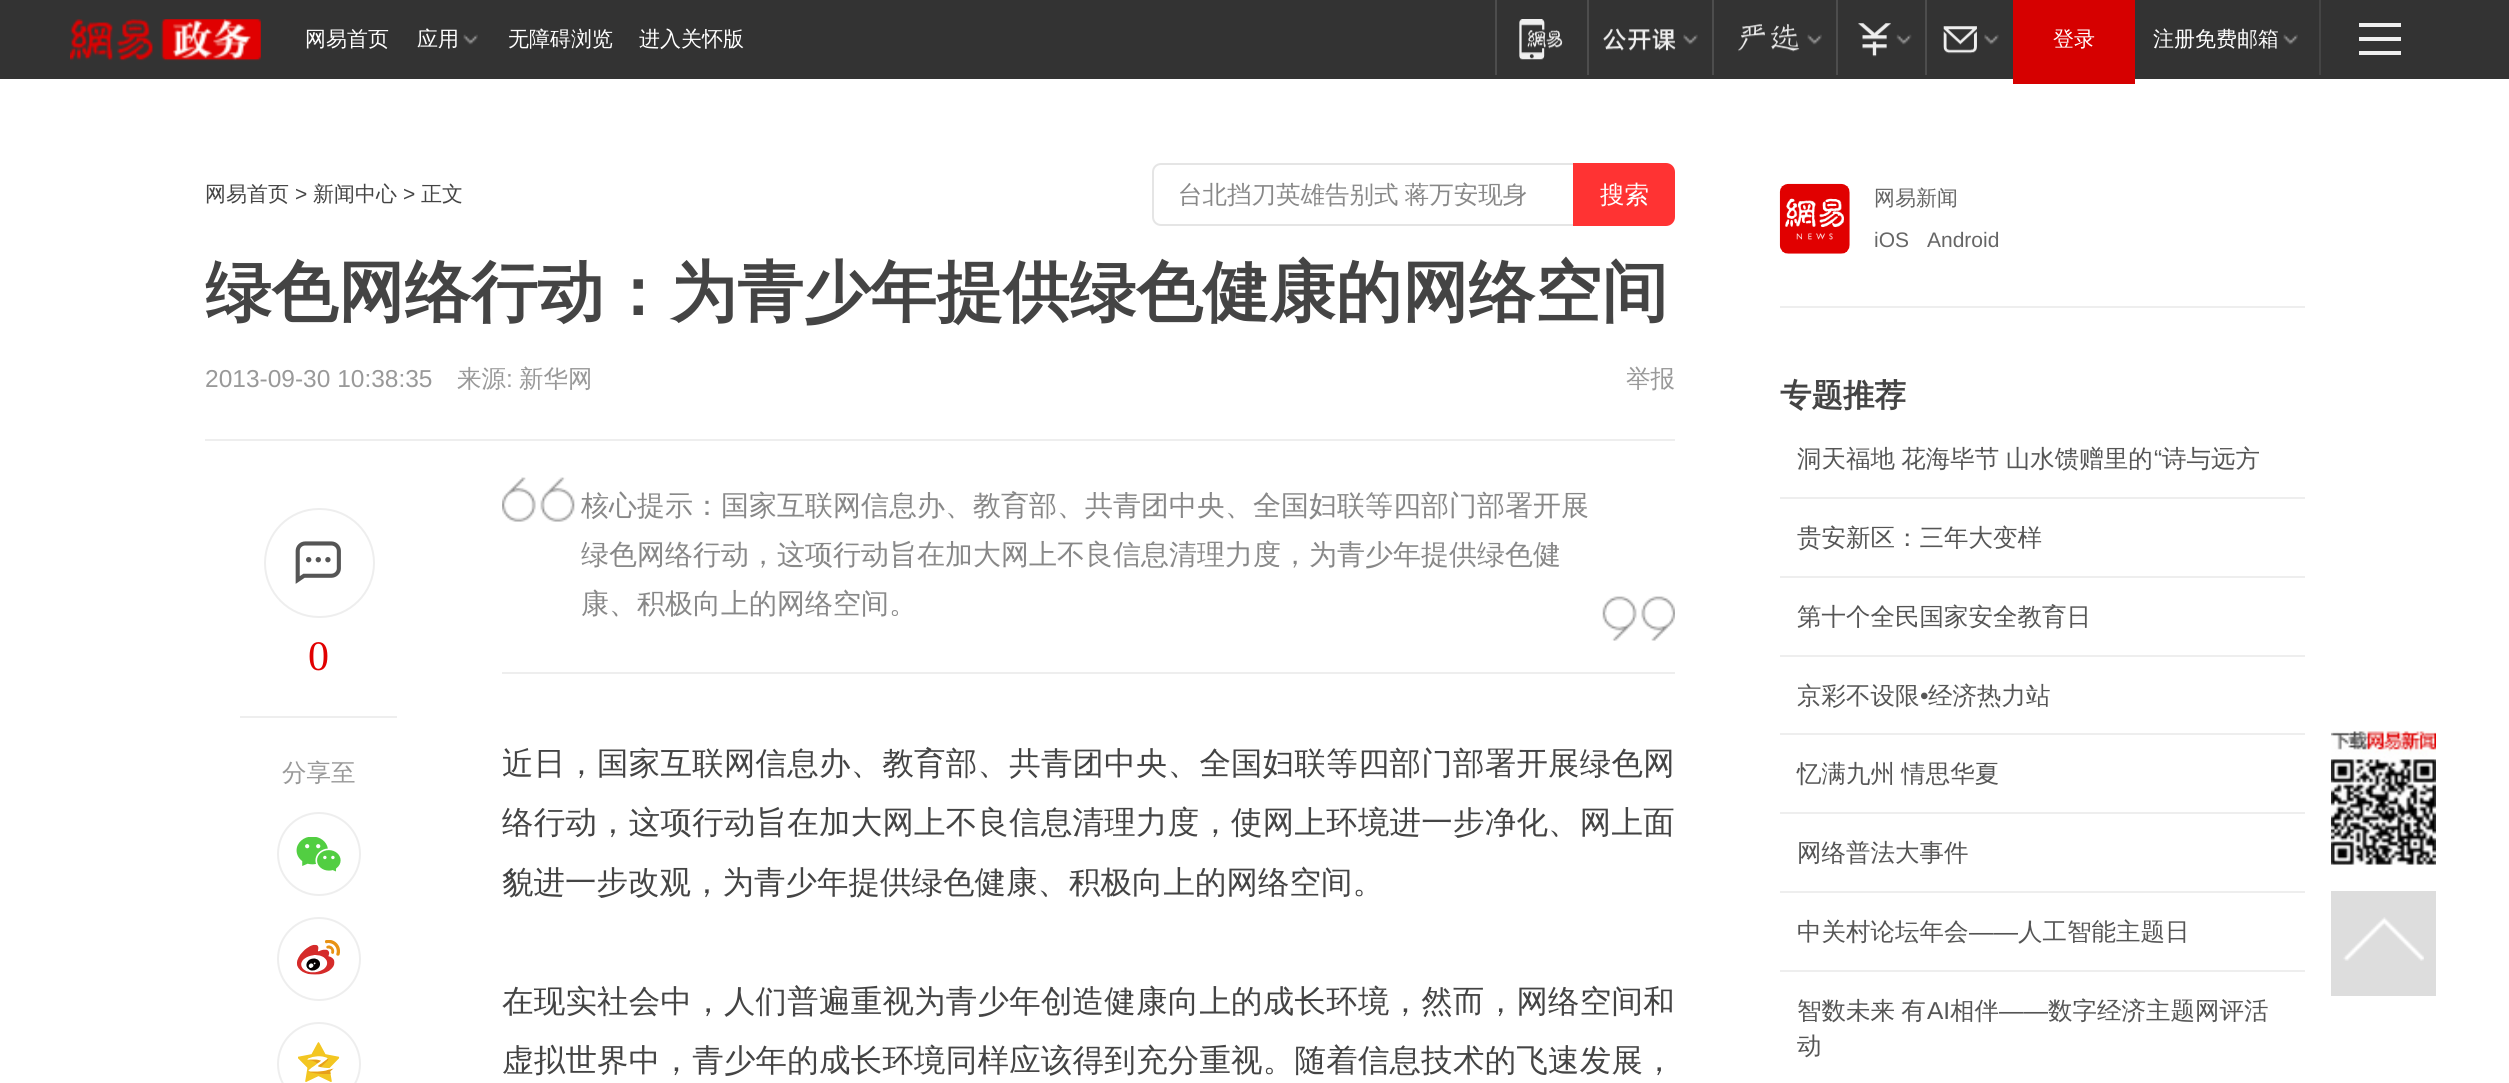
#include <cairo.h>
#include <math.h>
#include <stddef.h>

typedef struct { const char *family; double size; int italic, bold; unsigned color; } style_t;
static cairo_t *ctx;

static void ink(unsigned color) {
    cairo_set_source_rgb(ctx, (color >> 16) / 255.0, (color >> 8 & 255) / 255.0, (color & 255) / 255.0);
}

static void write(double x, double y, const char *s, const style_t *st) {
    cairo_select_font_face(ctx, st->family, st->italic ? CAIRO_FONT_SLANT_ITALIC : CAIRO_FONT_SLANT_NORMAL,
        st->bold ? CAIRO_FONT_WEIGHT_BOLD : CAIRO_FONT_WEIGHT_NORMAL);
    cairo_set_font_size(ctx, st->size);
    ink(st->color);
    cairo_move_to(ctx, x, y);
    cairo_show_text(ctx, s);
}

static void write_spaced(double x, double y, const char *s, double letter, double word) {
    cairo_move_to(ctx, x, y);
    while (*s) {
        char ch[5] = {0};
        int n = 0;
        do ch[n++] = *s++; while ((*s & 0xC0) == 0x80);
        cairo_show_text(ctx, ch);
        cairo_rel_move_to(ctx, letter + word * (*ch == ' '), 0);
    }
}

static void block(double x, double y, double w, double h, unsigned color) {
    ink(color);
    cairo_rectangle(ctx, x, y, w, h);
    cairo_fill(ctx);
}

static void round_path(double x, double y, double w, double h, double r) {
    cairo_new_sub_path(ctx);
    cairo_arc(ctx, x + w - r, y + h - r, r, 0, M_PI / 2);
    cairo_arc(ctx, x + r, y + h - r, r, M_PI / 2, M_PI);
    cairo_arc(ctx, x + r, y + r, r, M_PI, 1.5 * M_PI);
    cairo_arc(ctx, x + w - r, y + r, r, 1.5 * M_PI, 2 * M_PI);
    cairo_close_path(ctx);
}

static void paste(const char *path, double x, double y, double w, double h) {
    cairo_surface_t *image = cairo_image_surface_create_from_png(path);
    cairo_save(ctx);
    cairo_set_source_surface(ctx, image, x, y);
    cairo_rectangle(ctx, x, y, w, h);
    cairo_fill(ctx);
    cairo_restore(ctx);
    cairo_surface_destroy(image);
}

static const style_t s1 = {"WenQuanYi Zen Hei Medium", 21, 0, 0, 0xffffff};
static const style_t s2 = {"WenQuanYi Zen Hei Medium", 21, 0, 0, 0x444444};
static const style_t s3 = {"Liberation Sans", 21, 0, 0, 0x444444};
static const style_t s4 = {"WenQuanYi Zen Hei Medium", 24.5, 0, 0, 0xffffff};
static const style_t s5 = {"WenQuanYi Zen Hei", 66.5, 0, 1, 0x444444};
static const style_t s6 = {"Liberation Sans", 24.5, 0, 0, 0x999999};
static const style_t s7 = {"WenQuanYi Zen Hei Medium", 24.5, 0, 0, 0x999999};
static const style_t s8 = {"WenQuanYi Zen Hei Medium", 28, 0, 0, 0x888888};
static const style_t s9 = {"Liberation Serif", 42, 0, 0, 0xe10000};
static const style_t s10 = {"WenQuanYi Zen Hei Medium", 31.5, 0, 0, 0x444444};
static const style_t s11 = {"WenQuanYi Zen Hei Medium", 21, 0, 0, 0x666666};
static const style_t s12 = {"Liberation Sans", 21, 0, 0, 0x666666};
static const style_t s13 = {"WenQuanYi Zen Hei", 31.5, 0, 1, 0x444444};
static const style_t s14 = {"Liberation Sans", 24.5, 0, 0, 0x555555};
static const style_t s15 = {"WenQuanYi Zen Hei Medium", 24.5, 0, 0, 0x555555};

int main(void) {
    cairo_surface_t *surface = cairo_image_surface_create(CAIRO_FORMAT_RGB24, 2509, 1083);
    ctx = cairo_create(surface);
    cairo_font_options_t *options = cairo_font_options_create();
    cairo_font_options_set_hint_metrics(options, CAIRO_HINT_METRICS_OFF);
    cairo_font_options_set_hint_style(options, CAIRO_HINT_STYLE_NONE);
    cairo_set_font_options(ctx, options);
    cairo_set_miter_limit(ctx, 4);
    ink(0xffffff);
    cairo_paint(ctx);
    block(0, 0, 2509, 79, 0x333333);
    paste("pic1.png", 70, 19, 191, 42);
    write(305, 46, "网易首页", &s1);
    write(417, 46, "应用", &s1);
    paste("pic2.png", 463, 34, 15, 11);
    write(508, 46, "无障碍浏览", &s1);
    write(639, 46, "进入关怀版", &s1);
    block(1495, 0, 2, 75, 0x4d4d4d);
    paste("pic3.png", 1519, 19, 44, 41);
    block(1587, 0, 2, 75, 0x4d4d4d);
    paste("pic4.png", 1603, 28, 73, 23);
    paste("pic5.png", 1683, 34, 15, 11);
    block(1712, 0, 2, 75, 0x4d4d4d);
    paste("pic6.png", 1738, 23, 62, 29);
    paste("pic7.png", 1807, 34, 15, 11);
    block(1836, 0, 2, 75, 0x4d4d4d);
    paste("pic8.png", 1858, 23, 33, 34);
    paste("pic9.png", 1896, 34, 16, 11);
    block(1925, 0, 2, 75, 0x4d4d4d);
    paste("pic10.png", 1943, 26, 34, 28);
    paste("pic11.png", 1984, 34, 15, 11);
    block(2013, 0, 122, 84, 0xd60000);
    write(2053, 46, "登录", &s1);
    write(2153, 46, "注册免费邮箱", &s1);
    paste("pic2.png", 2283, 34, 15, 11);
    block(2319, 0, 2, 75, 0x444444);
    block(2359, 23, 42, 4, 0xefefef);
    block(2359, 37, 42, 4, 0xefefef);
    block(2359, 51, 42, 4, 0xefefef);
    write(205, 201, "网易首页", &s2);
    write(295, 201, ">", &s3);
    write(313, 201, "新闻中心", &s2);
    write(403, 201, ">", &s3);
    write(421, 201, "正文", &s2);
    cairo_new_path(ctx);
    cairo_move_to(ctx, 1161, 164);
    cairo_line_to(ctx, 1574, 164);
    cairo_line_to(ctx, 1574, 225);
    cairo_line_to(ctx, 1161, 225);
    cairo_curve_to(ctx, 1156.5, 225, 1153, 221.5, 1153, 217);
    cairo_line_to(ctx, 1153, 172);
    cairo_curve_to(ctx, 1153, 167.5, 1156.5, 164, 1161, 164);
    cairo_close_path(ctx);
    ink(0xe5e5e5);
    cairo_stroke(ctx);
    cairo_set_font_size(ctx, 24.5);
    ink(0x888888);
    write_spaced(1178, 203, "台北挡刀英雄告别式 蒋万安现身", 0, -1);
    ink(0xff3333);
    cairo_new_path(ctx);
    cairo_move_to(ctx, 1573, 163);
    cairo_line_to(ctx, 1666, 163);
    cairo_curve_to(ctx, 1671, 163, 1675, 167, 1675, 172);
    cairo_line_to(ctx, 1675, 217);
    cairo_curve_to(ctx, 1675, 222, 1671, 226, 1666, 226);
    cairo_line_to(ctx, 1573, 226);
    cairo_close_path(ctx);
    cairo_fill(ctx);
    write(1600, 203, "搜索", &s4);
    write(205, 315, "绿色网络行动：为青少年提供绿色健康的网络空间", &s5);
    write(205, 387, "2013-09-30 10:38:35", &s6);
    write(457, 387, "来源", &s7);
    write(506, 387, ":", &s6);
    write(519, 387, "新华网", &s7);
    write(1626, 387, "举报", &s7);
    block(205, 439, 1470, 2, 0xeeeeee);
    block(502, 672, 1173, 2, 0xeeeeee);
    paste("pic12.png", 502, 477, 73, 45);
    write(581, 515, "核心提示：国家互联网信息办、教育部、共青团中央、全国妇联等四部门部署开展", &s8);
    write(581, 564, "绿色网络行动，这项行动旨在加大网上不良信息清理力度，为青少年提供绿色健", &s8);
    write(581, 613, "康、积极向上的网络空间。", &s8);
    paste("pic13.png", 1602, 596, 73, 45);
    block(240, 716, 157, 2, 0xeeeeee);
    round_path(265, 509, 109, 108, 54);
    cairo_stroke(ctx);
    paste("pic14.png", 295, 541, 46, 43);
    write(308, 670, "0", &s9);
    write(282, 781, "分享至", &s7);
    cairo_new_path(ctx);
    cairo_arc(ctx, 319, 854, 41, 0, 2 * M_PI);
    ink(0xeeeeee);
    cairo_stroke(ctx);
    paste("pic15.png", 296, 837, 45, 35);
    cairo_arc(ctx, 319, 959, 41, 0, 2 * M_PI);
    cairo_stroke(ctx);
    paste("pic16.png", 297, 940, 43, 35);
    cairo_arc(ctx, 319, 1064, 41, 0, 2 * M_PI);
    cairo_stroke(ctx);
    paste("pic17.png", 298, 1042, 42, 40);
    cairo_set_font_size(ctx, 31.5);
    ink(0x444444);
    write_spaced(502, 774, "近日，国家互联网信息办、教育部、共青团中央、全国妇联等四部门部署开展绿色网", 0.2, 0);
    write_spaced(502, 833, "络行动，这项行动旨在加大网上不良信息清理力度，使网上环境进一步净化、网上面", 0.2, 0);
    write(502, 893, "貌进一步改观，为青少年提供绿色健康、积极向上的网络空间。", &s10);
    write_spaced(502, 1012, "在现实社会中，人们普遍重视为青少年创造健康向上的成长环境，然而，网络空间和", 0.2, 0);
    write_spaced(502, 1071, "虚拟世界中，青少年的成长环境同样应该得到充分重视。随着信息技术的飞速发展，", 0.2, 0);
    block(1780, 306, 525, 2, 0xeeeeee);
    paste("pic18.png", 1779, 183, 71, 71);
    write(1874, 205, "网易新闻", &s11);
    write(1874, 247, "iOS", &s12);
    write(1927, 247, "Android", &s12);
    write(1780, 406, "专题推荐", &s13);
    block(1780, 497, 525, 2, 0xeeeeee);
    cairo_select_font_face(ctx, "WenQuanYi Zen Hei Medium", CAIRO_FONT_SLANT_NORMAL, CAIRO_FONT_WEIGHT_NORMAL);
    cairo_set_font_size(ctx, 24.5);
    ink(0x555555);
    write_spaced(1797, 467, "洞天福地 花海毕节 山水馈赠里的", 0, -1);
    write(2154, 467, "“", &s14);
    write(2162, 467, "诗与远方", &s15);
    block(1780, 576, 525, 2, 0xeeeeee);
    write(1797, 546, "贵安新区：三年大变样", &s15);
    block(1780, 655, 525, 2, 0xeeeeee);
    write(1797, 625, "第十个全民国家安全教育日", &s15);
    block(1780, 733, 525, 2, 0xeeeeee);
    write(1797, 704, "京彩不设限", &s15);
    write(1920, 704, "•", &s14);
    write(1928, 704, "经济热力站", &s15);
    block(1780, 812, 525, 2, 0xeeeeee);
    ink(0x555555);
    write_spaced(1797, 782, "忆满九州 情思华夏", 0, -1);
    block(1780, 891, 525, 2, 0xeeeeee);
    write(1797, 861, "网络普法大事件", &s15);
    block(1780, 970, 525, 2, 0xeeeeee);
    write(1797, 940, "中关村论坛年会", &s15);
    write(1969, 940, "——", &s14);
    write(2018, 940, "人工智能主题日", &s15);
    write_spaced(1797, 1019, "智数未来 有", 0, -1);
    write(1927, 1019, "AI", &s14);
    write(1950, 1019, "相伴", &s15);
    write(1999, 1019, "——", &s14);
    write(2048, 1019, "数字经济主题网评活", &s15);
    write(1797, 1054, "动", &s15);
    paste("pic19.png", 2331, 730, 105, 135);
    block(2331, 891, 105, 105, 0xdddddd);
    paste("pic20.png", 2343, 917, 81, 44);
    cairo_surface_write_to_png(surface, "screenshot.png");
    cairo_font_options_destroy(options);
    cairo_destroy(ctx);
    cairo_surface_destroy(surface);
    return 0;
}
